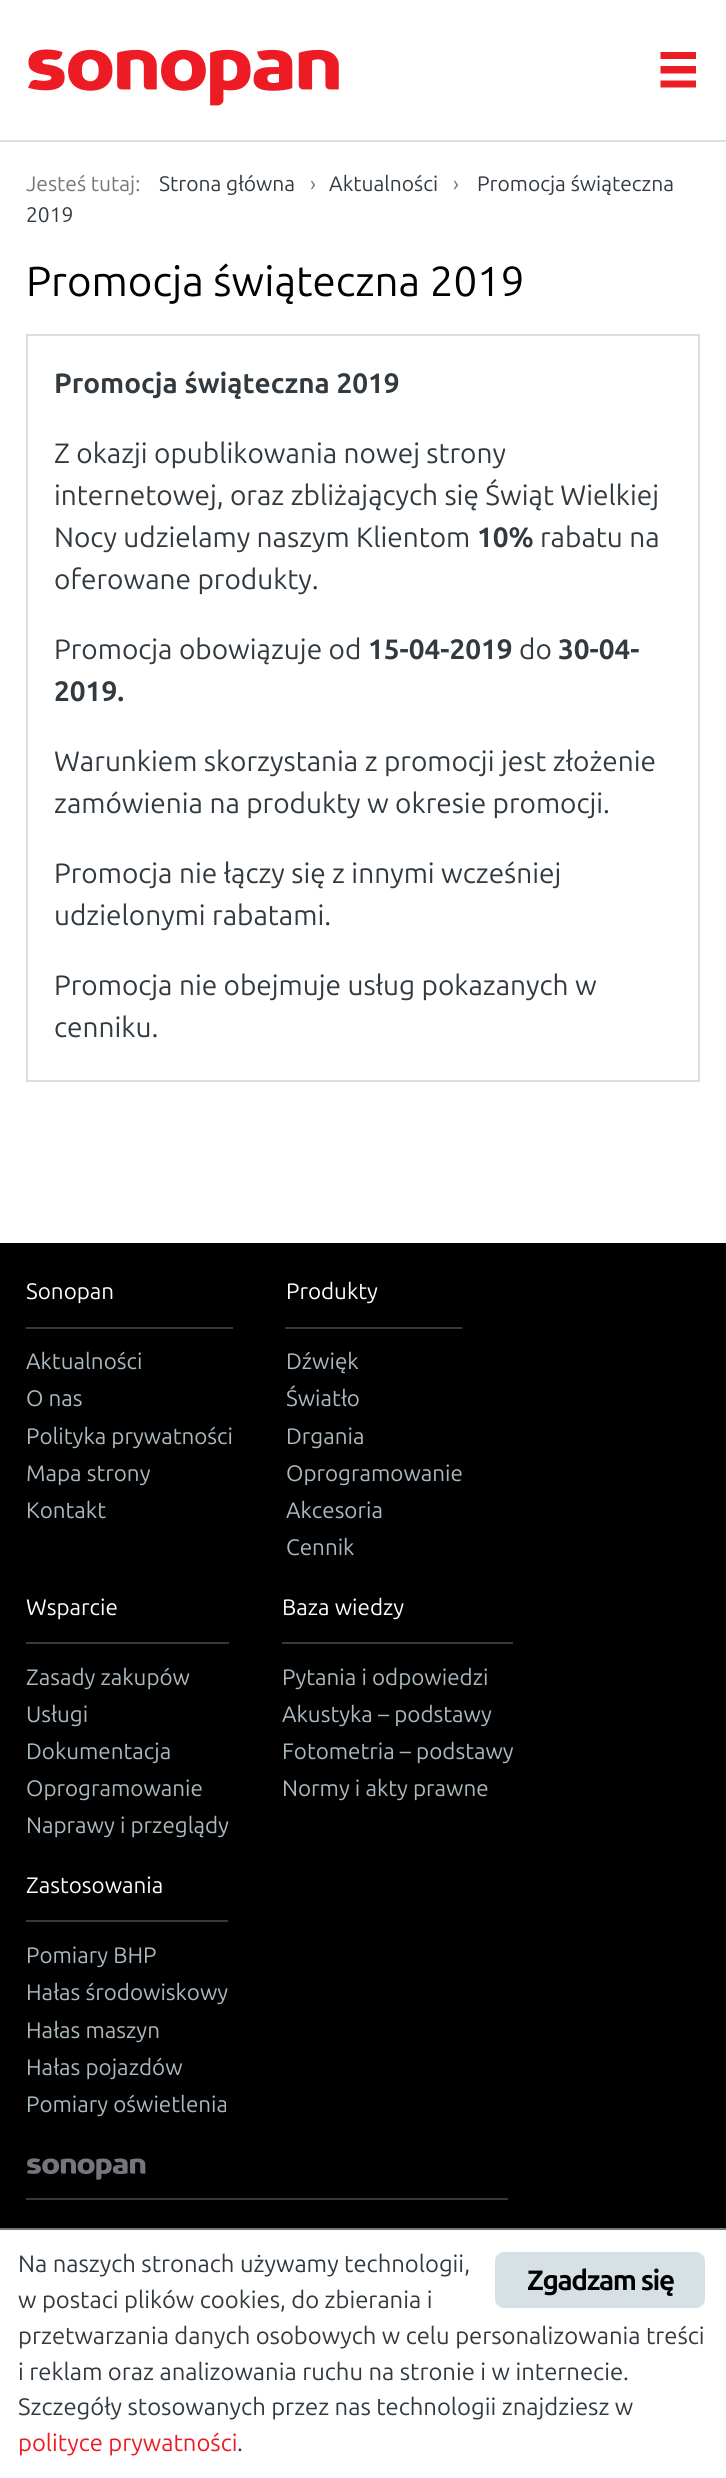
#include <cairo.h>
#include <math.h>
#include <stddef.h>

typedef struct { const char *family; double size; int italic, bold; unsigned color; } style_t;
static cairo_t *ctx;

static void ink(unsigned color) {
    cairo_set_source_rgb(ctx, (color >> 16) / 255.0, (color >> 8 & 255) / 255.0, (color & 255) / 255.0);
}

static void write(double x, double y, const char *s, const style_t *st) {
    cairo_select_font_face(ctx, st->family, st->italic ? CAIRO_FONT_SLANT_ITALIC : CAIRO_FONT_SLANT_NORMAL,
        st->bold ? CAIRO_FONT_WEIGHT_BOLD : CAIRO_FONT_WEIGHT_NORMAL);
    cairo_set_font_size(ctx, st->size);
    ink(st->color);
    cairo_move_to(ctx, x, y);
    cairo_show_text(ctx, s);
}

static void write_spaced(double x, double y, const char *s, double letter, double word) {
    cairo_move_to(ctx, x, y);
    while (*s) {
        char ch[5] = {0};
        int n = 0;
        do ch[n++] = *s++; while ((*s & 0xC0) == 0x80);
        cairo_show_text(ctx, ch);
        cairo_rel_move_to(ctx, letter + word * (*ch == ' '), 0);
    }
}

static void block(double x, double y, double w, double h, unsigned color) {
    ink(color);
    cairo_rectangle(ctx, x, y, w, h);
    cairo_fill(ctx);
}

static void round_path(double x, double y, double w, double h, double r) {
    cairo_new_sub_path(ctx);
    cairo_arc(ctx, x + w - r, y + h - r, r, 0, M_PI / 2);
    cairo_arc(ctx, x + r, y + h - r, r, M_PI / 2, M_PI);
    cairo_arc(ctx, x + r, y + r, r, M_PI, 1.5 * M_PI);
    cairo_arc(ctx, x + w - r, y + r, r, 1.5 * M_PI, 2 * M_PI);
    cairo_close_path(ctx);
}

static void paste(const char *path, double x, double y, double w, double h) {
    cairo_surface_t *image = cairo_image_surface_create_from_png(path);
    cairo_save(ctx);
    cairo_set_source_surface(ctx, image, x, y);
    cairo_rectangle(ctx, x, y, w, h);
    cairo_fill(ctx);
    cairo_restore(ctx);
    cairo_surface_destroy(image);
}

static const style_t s1 = {"Ubuntu", 21, 0, 0, 0x757679};
static const style_t s2 = {"Ubuntu", 21, 0, 0, 0x323a40};
static const style_t s3 = {"Ubuntu", 42, 0, 0, 0x000000};
static const style_t s4 = {"Ubuntu", 28, 0, 1, 0x323a40};
static const style_t s5 = {"Ubuntu", 28, 0, 0, 0x323a40};
static const style_t s6 = {"Ubuntu", 22.4, 0, 0, 0xffffff};
static const style_t s7 = {"Ubuntu", 22.4, 0, 0, 0xacb8bf};
static const style_t s8 = {"Ubuntu", 23.8, 0, 0, 0x323a40};
static const style_t s9 = {"Ubuntu", 23.8, 0, 0, 0xed1c24};

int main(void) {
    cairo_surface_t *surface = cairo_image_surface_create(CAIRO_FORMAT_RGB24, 726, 2478);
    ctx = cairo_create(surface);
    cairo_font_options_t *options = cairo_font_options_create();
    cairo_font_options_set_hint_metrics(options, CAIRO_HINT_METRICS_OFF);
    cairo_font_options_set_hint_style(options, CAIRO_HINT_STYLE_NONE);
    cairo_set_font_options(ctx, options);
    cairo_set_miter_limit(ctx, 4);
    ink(0x000000);
    cairo_paint(ctx);
    block(0, 0, 726, 140, 0xffffff);
    paste("pic1.png", 28, 49, 311, 57);
    ink(0xed1c24);
    cairo_new_path(ctx);
    cairo_move_to(ctx, 660.5, 52);
    cairo_line_to(ctx, 696, 52);
    cairo_line_to(ctx, 696, 59);
    cairo_line_to(ctx, 660.5, 59);
    cairo_close_path(ctx);
    cairo_move_to(ctx, 660.5, 66);
    cairo_line_to(ctx, 696, 66);
    cairo_line_to(ctx, 696, 73.5);
    cairo_line_to(ctx, 660.5, 73.5);
    cairo_close_path(ctx);
    cairo_move_to(ctx, 660.5, 80.5);
    cairo_line_to(ctx, 696, 80.5);
    cairo_line_to(ctx, 696, 87.5);
    cairo_line_to(ctx, 660.5, 87.5);
    cairo_close_path(ctx);
    cairo_fill(ctx);
    block(0, 142, 726, 1101, 0xffffff);
    block(0, 140, 726, 2, 0xd6e0e5);
    write(26, 191, "Jesteś tutaj:", &s1);
    write(159, 191, "Strona główna", &s2);
    write(310, 191, "›", &s1);
    write(329, 191, "Aktualności", &s2);
    write(453, 191, "›", &s1);
    write(477, 191, "Promocja świąteczna", &s2);
    write(26, 222, "2019", &s2);
    write(26, 296, "Promocja świąteczna 2019", &s3);
    cairo_rectangle(ctx, 27, 335, 672, 746);
    ink(0xd6e0e5);
    cairo_stroke(ctx);
    write(54, 393, "Promocja świąteczna 2019", &s4);
    write(54, 463, "Z okazji opublikowania nowej strony", &s5);
    write(54, 505, "internetowej, oraz zbliżających się Świąt Wielkiej", &s5);
    write(54, 547, "Nocy udzielamy naszym Klientom", &s5);
    write(477, 547, "10%", &s4);
    write(540, 547, "rabatu na", &s5);
    write(54, 589, "oferowane produkty.", &s5);
    write(54, 659, "Promocja obowiązuje od", &s5);
    write(368, 659, "15-04-2019", &s4);
    write(519, 659, "do", &s5);
    write(558, 659, "30-04-", &s4);
    write(54, 701, "2019.", &s4);
    write(54, 771, "Warunkiem skorzystania z promocji jest złożenie", &s5);
    write(54, 813, "zamówienia na produkty w okresie promocji.", &s5);
    write(54, 883, "Promocja nie łączy się z innymi wcześniej", &s5);
    write(54, 925, "udzielonymi rabatami.", &s5);
    write(54, 995, "Promocja nie obejmuje usług pokazanych w", &s5);
    write(54, 1037, "cenniku.", &s5);
    write(26, 1299, "Sonopan", &s6);
    block(26, 1327, 207, 2, 0x323a40);
    write(26, 1369, "Aktualności", &s7);
    write(26, 1406, "O nas", &s7);
    write(26, 1444, "Polityka prywatności", &s7);
    write(26, 1481, "Mapa strony", &s7);
    write(26, 1518, "Kontakt", &s7);
    write(286, 1299, "Produkty", &s6);
    block(285, 1327, 177, 2, 0x323a40);
    write(286, 1369, "Dźwięk", &s7);
    write(286, 1406, "Światło", &s7);
    write(286, 1444, "Drgania", &s7);
    write(286, 1481, "Oprogramowanie", &s7);
    write(286, 1518, "Akcesoria", &s7);
    write(286, 1555, "Cennik", &s7);
    write(26, 1615, "Wsparcie", &s6);
    block(26, 1642, 203, 2, 0x323a40);
    write(26, 1685, "Zasady zakupów", &s7);
    write(26, 1722, "Usługi", &s7);
    write(26, 1759, "Dokumentacja", &s7);
    write(26, 1796, "Oprogramowanie", &s7);
    write(26, 1833, "Naprawy i przeglądy", &s7);
    write(282, 1615, "Baza wiedzy", &s6);
    block(282, 1642, 231, 2, 0x323a40);
    write(282, 1685, "Pytania i odpowiedzi", &s7);
    write(282, 1722, "Akustyka – podstawy", &s7);
    write(282, 1759, "Fotometria – podstawy", &s7);
    write(282, 1796, "Normy i akty prawne", &s7);
    write(26, 1893, "Zastosowania", &s6);
    block(26, 1920, 202, 2, 0x323a40);
    write(26, 1963, "Pomiary BHP", &s7);
    write(26, 2000, "Hałas środowiskowy", &s7);
    write(26, 2038, "Hałas maszyn", &s7);
    write(26, 2075, "Hałas pojazdów", &s7);
    write(26, 2112, "Pomiary oświetlenia", &s7);
    paste("pic2.png", 27, 2158, 119, 22);
    block(26, 2198, 482, 2, 0x323a40);
    block(0, 2230, 726, 248, 0xffffff);
    block(0, 2228, 726, 2, 0x757679);
    write(18, 2272, "Na naszych stronach używamy technologii,", &s8);
    write(18, 2308, "w postaci plików cookies, do zbierania i", &s8);
    write(18, 2344, "przetwarzania danych osobowych w celu personalizowania treści", &s8);
    write(18, 2380, "i reklam oraz analizowania ruchu na stronie i w internecie.", &s8);
    write(18, 2415, "Szczegóły stosowanych przez nas technologii znajdziesz w", &s8);
    write(18, 2451, "polityce prywatności", &s9);
    write(237, 2451, ".", &s8);
    ink(0xd6e0e5);
    round_path(495, 2252, 210, 56, 9);
    cairo_fill(ctx);
    cairo_select_font_face(ctx, "Ubuntu", CAIRO_FONT_SLANT_NORMAL, CAIRO_FONT_WEIGHT_BOLD);
    cairo_set_font_size(ctx, 28);
    ink(0x000000);
    write_spaced(527, 2290, "Zgadzam się", -1.4, 0);
    cairo_surface_write_to_png(surface, "screenshot.png");
    cairo_font_options_destroy(options);
    cairo_destroy(ctx);
    cairo_surface_destroy(surface);
    return 0;
}
